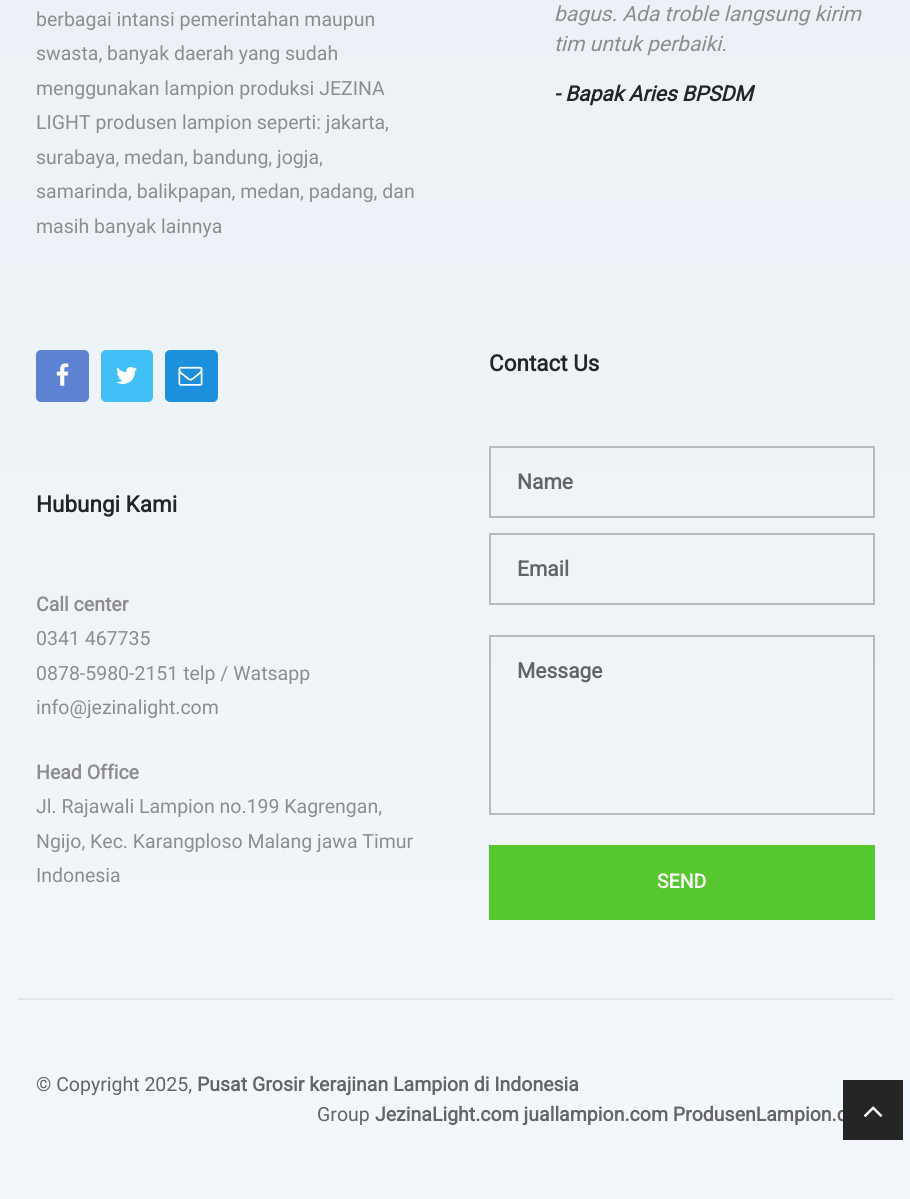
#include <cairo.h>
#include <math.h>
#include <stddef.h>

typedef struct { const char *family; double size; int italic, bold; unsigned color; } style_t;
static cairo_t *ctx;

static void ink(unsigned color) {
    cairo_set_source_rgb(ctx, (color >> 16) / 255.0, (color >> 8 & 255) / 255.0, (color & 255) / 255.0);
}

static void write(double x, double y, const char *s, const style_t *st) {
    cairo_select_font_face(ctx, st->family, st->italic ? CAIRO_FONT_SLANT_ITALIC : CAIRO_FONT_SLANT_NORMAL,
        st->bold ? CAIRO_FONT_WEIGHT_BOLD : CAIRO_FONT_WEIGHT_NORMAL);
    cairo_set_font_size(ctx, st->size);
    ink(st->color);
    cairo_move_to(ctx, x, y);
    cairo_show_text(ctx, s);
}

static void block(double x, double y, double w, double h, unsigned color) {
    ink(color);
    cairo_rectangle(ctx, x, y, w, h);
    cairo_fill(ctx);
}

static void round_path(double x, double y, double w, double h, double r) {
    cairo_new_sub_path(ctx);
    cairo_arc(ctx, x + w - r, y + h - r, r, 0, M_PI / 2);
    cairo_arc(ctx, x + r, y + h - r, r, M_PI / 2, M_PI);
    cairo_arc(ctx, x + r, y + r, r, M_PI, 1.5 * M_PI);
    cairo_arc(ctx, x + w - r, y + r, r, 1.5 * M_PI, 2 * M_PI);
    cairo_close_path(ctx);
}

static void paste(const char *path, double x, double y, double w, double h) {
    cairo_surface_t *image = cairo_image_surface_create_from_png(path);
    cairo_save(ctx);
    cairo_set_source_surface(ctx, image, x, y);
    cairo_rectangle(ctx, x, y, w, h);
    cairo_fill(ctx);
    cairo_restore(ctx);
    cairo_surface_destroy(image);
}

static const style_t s1 = {"Roboto", 19.5, 0, 0, 0x8d8d8d};
static const style_t s2 = {"Roboto", 21, 1, 0, 0x8d8d8d};
static const style_t s3 = {"Roboto", 21, 1, 1, 0x252525};
static const style_t s4 = {"Roboto", 22.5, 0, 1, 0x252525};
static const style_t s5 = {"Roboto", 19.5, 0, 1, 0x8d8d8d};
static const style_t s6 = {"Roboto", 21, 0, 1, 0x656565};
static const style_t s7 = {"Roboto", 19.5, 0, 1, 0xffffff};
static const style_t s8 = {"Roboto", 19.5, 0, 0, 0x656565};
static const style_t s9 = {"Roboto", 19.5, 0, 1, 0x656565};

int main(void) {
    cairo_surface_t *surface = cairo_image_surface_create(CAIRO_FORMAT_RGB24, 910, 1199);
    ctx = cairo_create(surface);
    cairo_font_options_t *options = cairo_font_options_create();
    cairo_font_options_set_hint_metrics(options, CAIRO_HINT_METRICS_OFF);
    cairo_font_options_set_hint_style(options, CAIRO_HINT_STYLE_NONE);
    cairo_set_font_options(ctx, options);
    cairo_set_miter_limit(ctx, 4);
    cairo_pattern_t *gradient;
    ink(0xffffff);
    cairo_paint(ctx);
    gradient = cairo_pattern_create_linear(455, -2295, 455, 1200);
    cairo_pattern_add_color_stop_rgba(gradient, 0, 0.875, 0.902, 0.937, 1);
    cairo_pattern_add_color_stop_rgba(gradient, 1, 0.953, 0.969, 0.984, 1);
    cairo_set_source(ctx, gradient);
    cairo_pattern_destroy(gradient);
    cairo_rectangle(ctx, 0, 0, 910, 1199);
    cairo_fill(ctx);
    write(36, 26, "berbagai intansi pemerintahan maupun", &s1);
    write(36, 60, "swasta, banyak daerah yang sudah", &s1);
    write(36, 95, "menggunakan lampion produksi JEZINA", &s1);
    write(36, 129, "LIGHT produsen lampion seperti: jakarta,", &s1);
    write(36, 164, "surabaya, medan, bandung, jogja,", &s1);
    write(36, 198, "samarinda, balikpapan, medan, padang, dan", &s1);
    write(36, 233, "masih banyak lainnya", &s1);
    write(554, 21, "bagus. Ada troble langsung kirim", &s2);
    write(554, 51, "tim untuk perbaiki.", &s2);
    write(554, 101, "- Bapak Aries BPSDM", &s3);
    ink(0x5d82d1);
    round_path(36, 350, 53, 52, 5);
    cairo_fill(ctx);
    paste("pic1.png", 56, 363, 13, 23);
    ink(0x40bff5);
    round_path(101, 350, 52, 52, 5);
    cairo_fill(ctx);
    paste("pic2.png", 116, 366, 21, 18);
    ink(0x1d90dd);
    round_path(165, 350, 53, 52, 5);
    cairo_fill(ctx);
    paste("pic3.png", 178, 366, 25, 20);
    write(36, 512, "Hubungi Kami", &s4);
    write(36, 611, "Call center", &s5);
    write(36, 645, "0341 467735", &s1);
    write(36, 680, "0878-5980-2151 telp / Watsapp", &s1);
    write(36, 714, "info@jezinalight.com", &s1);
    write(36, 779, "Head Office", &s5);
    write(36, 813, "Jl. Rajawali Lampion no.199 Kagrengan,", &s1);
    write(36, 848, "Ngijo, Kec. Karangploso Malang jawa Timur", &s1);
    write(36, 882, "Indonesia", &s1);
    write(489, 371, "Contact Us", &s4);
    cairo_rectangle(ctx, 490, 447, 384, 70);
    ink(0xb9babb);
    cairo_stroke(ctx);
    write(517, 489, "Name", &s6);
    cairo_rectangle(ctx, 490, 534, 384, 70);
    ink(0xb9babb);
    cairo_stroke(ctx);
    write(517, 576, "Email", &s6);
    cairo_rectangle(ctx, 490, 636, 384, 178);
    ink(0xb9babb);
    cairo_stroke(ctx);
    write(517, 678, "Message", &s6);
    block(489, 845, 386, 75, 0x57c730);
    write(657, 888, "SEND", &s7);
    block(18, 998, 875, 2, 0xe5e5e5);
    write(36, 1091, "© Copyright 2025,", &s8);
    write(197, 1091, "Pusat Grosir kerajinan Lampion di Indonesia", &s9);
    write(317, 1121, "Group", &s8);
    write(375, 1121, "JezinaLight.com juallampion.com ProdusenLampion.c", &s9);
    block(843, 1080, 60, 60, 0x252525);
    paste("pic4.png", 864, 1106, 19, 11);
    cairo_surface_write_to_png(surface, "screenshot.png");
    cairo_font_options_destroy(options);
    cairo_destroy(ctx);
    cairo_surface_destroy(surface);
    return 0;
}
